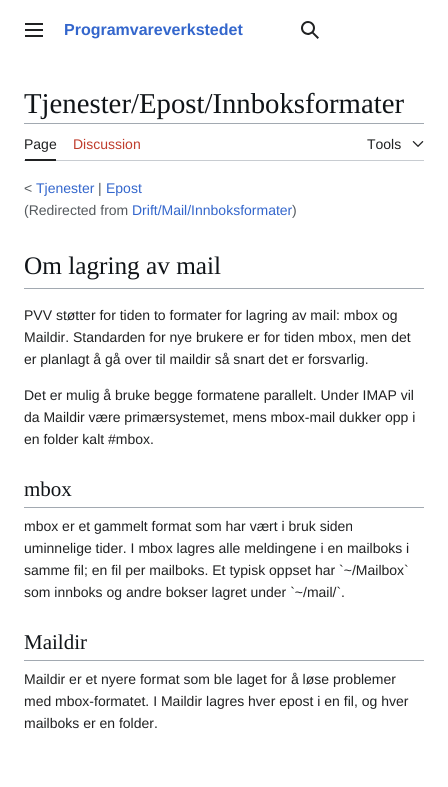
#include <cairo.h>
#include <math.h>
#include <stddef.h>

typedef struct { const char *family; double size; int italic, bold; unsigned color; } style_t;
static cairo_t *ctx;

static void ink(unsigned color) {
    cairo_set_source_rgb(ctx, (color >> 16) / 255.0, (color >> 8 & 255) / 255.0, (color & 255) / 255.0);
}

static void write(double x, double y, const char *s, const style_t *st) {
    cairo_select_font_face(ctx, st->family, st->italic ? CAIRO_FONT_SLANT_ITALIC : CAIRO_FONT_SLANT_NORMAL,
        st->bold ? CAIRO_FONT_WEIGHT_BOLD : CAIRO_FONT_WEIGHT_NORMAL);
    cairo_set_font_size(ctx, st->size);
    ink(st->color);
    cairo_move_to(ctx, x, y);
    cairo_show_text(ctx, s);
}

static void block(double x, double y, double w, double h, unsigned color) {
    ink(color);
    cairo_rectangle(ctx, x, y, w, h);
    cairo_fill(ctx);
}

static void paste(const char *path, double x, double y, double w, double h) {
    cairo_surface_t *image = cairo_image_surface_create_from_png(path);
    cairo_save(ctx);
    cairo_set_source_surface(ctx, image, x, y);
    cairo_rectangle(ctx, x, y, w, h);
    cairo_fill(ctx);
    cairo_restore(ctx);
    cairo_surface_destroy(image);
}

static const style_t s1 = {"Liberation Sans", 16, 0, 1, 0x3366cc};
static const style_t s2 = {"Liberation Serif", 28.75, 0, 0, 0x101418};
static const style_t s3 = {"Liberation Sans", 14, 0, 0, 0x202122};
static const style_t s4 = {"Liberation Sans", 14, 0, 0, 0xbf3c2c};
static const style_t s5 = {"Liberation Sans", 14, 0, 0, 0x54595d};
static const style_t s6 = {"Liberation Sans", 14, 0, 0, 0x3366cc};
static const style_t s7 = {"Liberation Serif", 25.25, 0, 0, 0x101418};
static const style_t s8 = {"Liberation Serif", 21, 0, 0, 0x101418};

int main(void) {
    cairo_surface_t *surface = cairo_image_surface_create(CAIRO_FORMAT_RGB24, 448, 787);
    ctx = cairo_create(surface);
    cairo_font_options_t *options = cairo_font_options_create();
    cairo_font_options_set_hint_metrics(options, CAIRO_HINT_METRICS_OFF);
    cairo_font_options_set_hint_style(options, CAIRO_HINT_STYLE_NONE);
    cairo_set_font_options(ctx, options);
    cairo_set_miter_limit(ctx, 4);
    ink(0xffffff);
    cairo_paint(ctx);
    paste("pic1.png", 25, 23, 18, 14);
    write(64, 35, "Programvareverkstedet", &s1);
    paste("pic2.png", 301, 21, 18, 18);
    write(24, 113, "Tjenester/Epost/Innboksformater", &s2);
    block(24, 123, 400, 1, 0xa2a9b1);
    block(24, 160, 400, 1, 0xc8ccd1);
    block(25, 159, 31, 2, 0x202122);
    write(24, 149, "Page", &s3);
    write(73, 149, "Discussion", &s4);
    write(367, 149, "Tools", &s3);
    paste("pic3.png", 412, 141, 12, 6);
    write(24, 193, "<", &s5);
    write(36, 193, "Tjenester", &s6);
    write(98, 193, "|", &s5);
    write(106, 193, "Epost", &s6);
    write(24, 215, "(Redirected from", &s5);
    write(132, 215, "Drift/Mail/Innboksformater", &s6);
    write(292, 215, ")", &s5);
    block(24, 288, 400, 1, 0xa2a9b1);
    write(24, 274, "Om lagring av mail", &s7);
    write(24, 320, "PVV støtter for tiden to formater for lagring av mail: mbox og", &s3);
    write(24, 342, "Maildir. Standarden for nye brukere er for tiden mbox, men det", &s3);
    write(24, 364, "er planlagt å gå over til maildir så snart det er forsvarlig.", &s3);
    write(24, 400, "Det er mulig å bruke begge formatene parallelt. Under IMAP vil", &s3);
    write(24, 422, "da Maildir være primærsystemet, mens mbox-mail dukker opp i", &s3);
    write(24, 444, "en folder kalt #mbox.", &s3);
    block(24, 507, 400, 1, 0xa2a9b1);
    write(24, 496, "mbox", &s8);
    write(24, 531, "mbox er et gammelt format som har vært i bruk siden", &s3);
    write(24, 553, "uminnelige tider. I mbox lagres alle meldingene i en mailboks i", &s3);
    write(24, 575, "samme fil; en fil per mailboks. Et typisk oppset har `~/Mailbox`", &s3);
    write(24, 597, "som innboks og andre bokser lagret under `~/mail/`.", &s3);
    block(24, 660, 400, 1, 0xa2a9b1);
    write(24, 649, "Maildir", &s8);
    write(24, 684, "Maildir er et nyere format som ble laget for å løse problemer", &s3);
    write(24, 706, "med mbox-formatet. I Maildir lagres hver epost i en fil, og hver", &s3);
    write(24, 728, "mailboks er en folder.", &s3);
    cairo_surface_write_to_png(surface, "screenshot.png");
    cairo_font_options_destroy(options);
    cairo_destroy(ctx);
    cairo_surface_destroy(surface);
    return 0;
}
